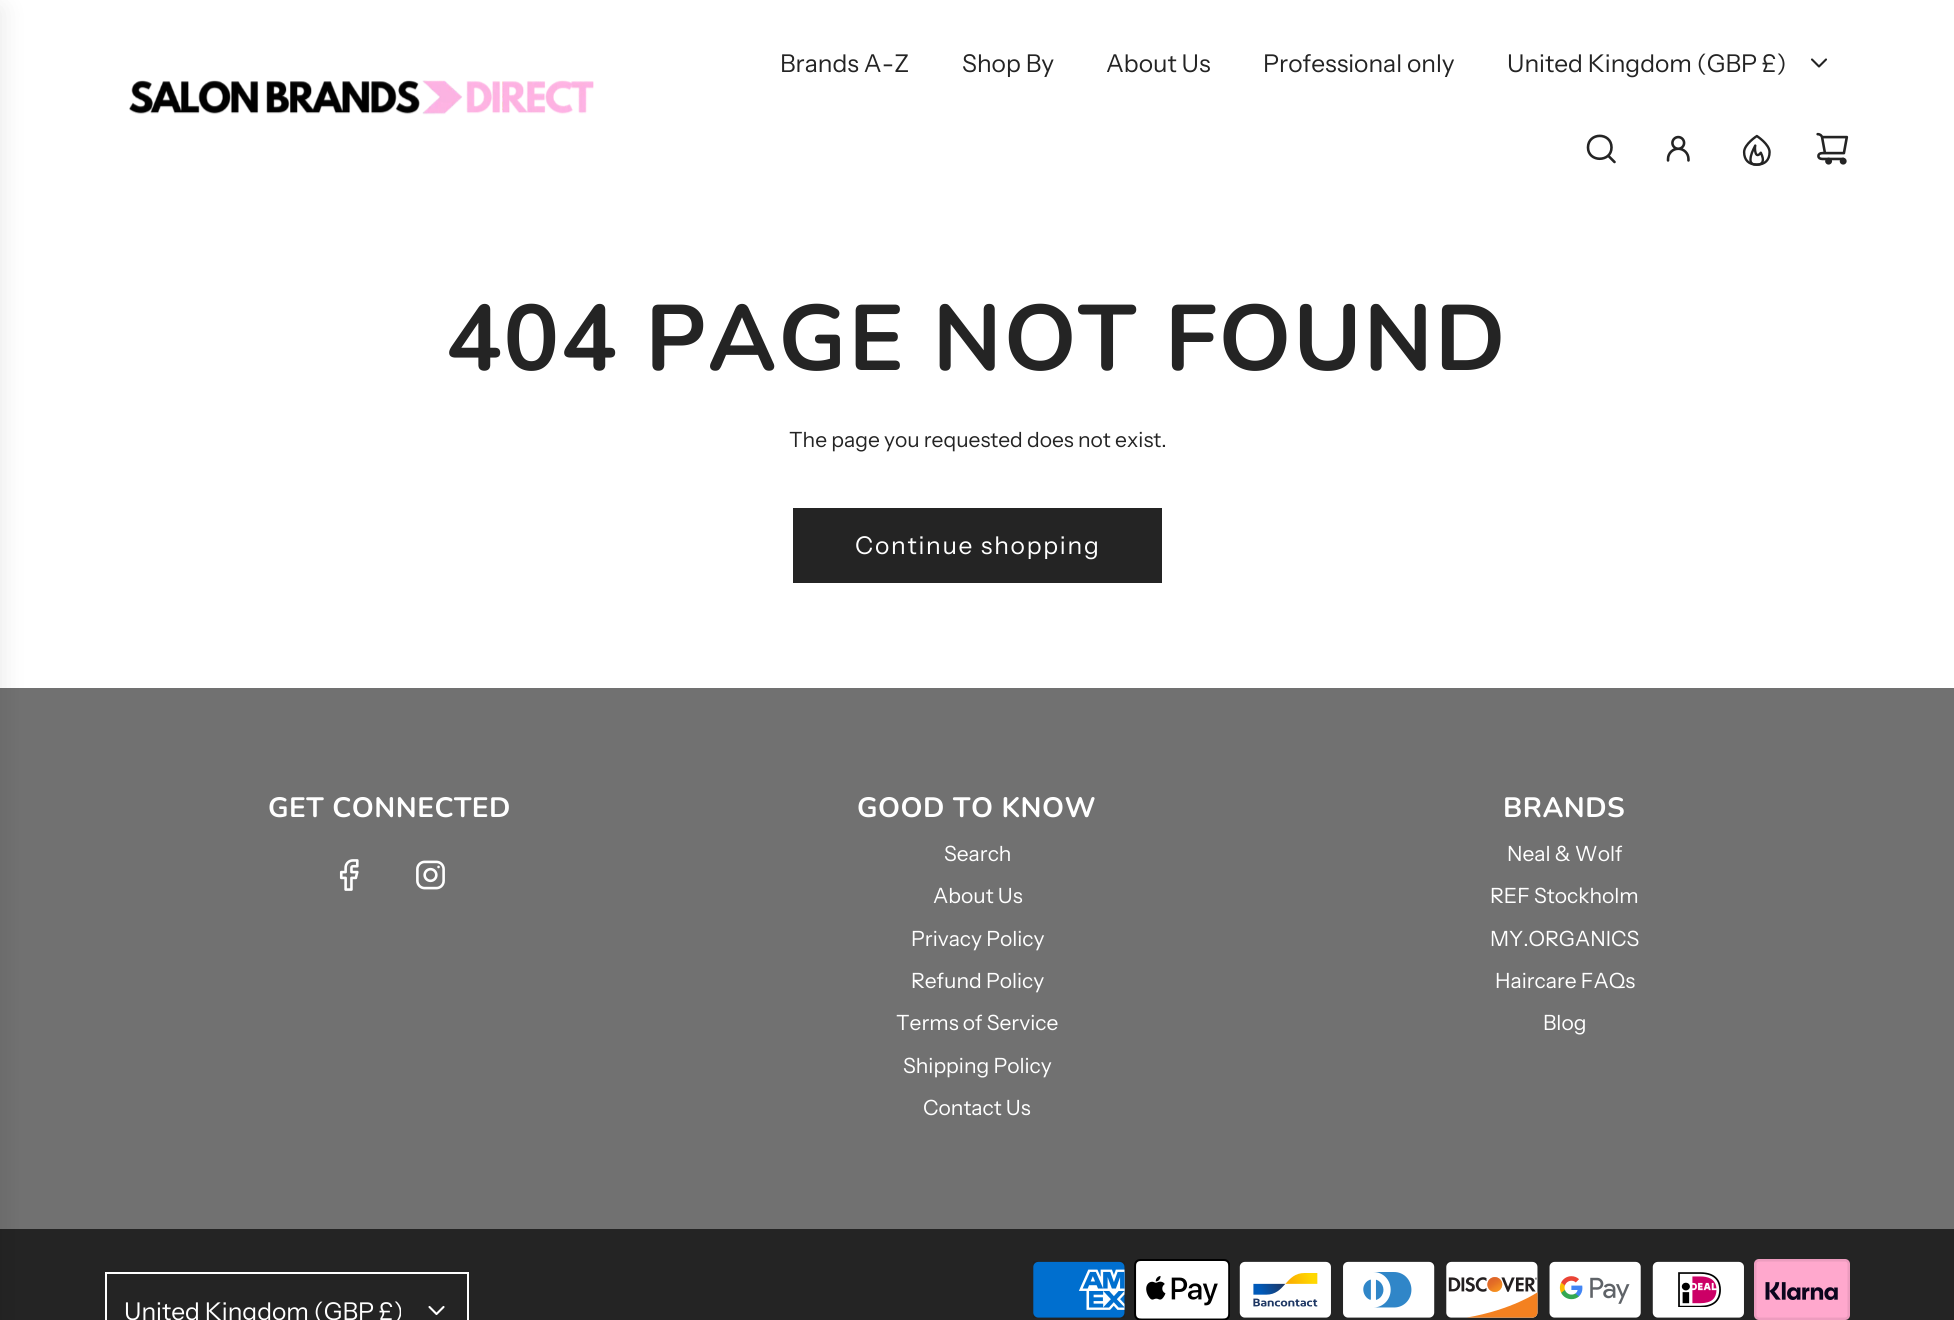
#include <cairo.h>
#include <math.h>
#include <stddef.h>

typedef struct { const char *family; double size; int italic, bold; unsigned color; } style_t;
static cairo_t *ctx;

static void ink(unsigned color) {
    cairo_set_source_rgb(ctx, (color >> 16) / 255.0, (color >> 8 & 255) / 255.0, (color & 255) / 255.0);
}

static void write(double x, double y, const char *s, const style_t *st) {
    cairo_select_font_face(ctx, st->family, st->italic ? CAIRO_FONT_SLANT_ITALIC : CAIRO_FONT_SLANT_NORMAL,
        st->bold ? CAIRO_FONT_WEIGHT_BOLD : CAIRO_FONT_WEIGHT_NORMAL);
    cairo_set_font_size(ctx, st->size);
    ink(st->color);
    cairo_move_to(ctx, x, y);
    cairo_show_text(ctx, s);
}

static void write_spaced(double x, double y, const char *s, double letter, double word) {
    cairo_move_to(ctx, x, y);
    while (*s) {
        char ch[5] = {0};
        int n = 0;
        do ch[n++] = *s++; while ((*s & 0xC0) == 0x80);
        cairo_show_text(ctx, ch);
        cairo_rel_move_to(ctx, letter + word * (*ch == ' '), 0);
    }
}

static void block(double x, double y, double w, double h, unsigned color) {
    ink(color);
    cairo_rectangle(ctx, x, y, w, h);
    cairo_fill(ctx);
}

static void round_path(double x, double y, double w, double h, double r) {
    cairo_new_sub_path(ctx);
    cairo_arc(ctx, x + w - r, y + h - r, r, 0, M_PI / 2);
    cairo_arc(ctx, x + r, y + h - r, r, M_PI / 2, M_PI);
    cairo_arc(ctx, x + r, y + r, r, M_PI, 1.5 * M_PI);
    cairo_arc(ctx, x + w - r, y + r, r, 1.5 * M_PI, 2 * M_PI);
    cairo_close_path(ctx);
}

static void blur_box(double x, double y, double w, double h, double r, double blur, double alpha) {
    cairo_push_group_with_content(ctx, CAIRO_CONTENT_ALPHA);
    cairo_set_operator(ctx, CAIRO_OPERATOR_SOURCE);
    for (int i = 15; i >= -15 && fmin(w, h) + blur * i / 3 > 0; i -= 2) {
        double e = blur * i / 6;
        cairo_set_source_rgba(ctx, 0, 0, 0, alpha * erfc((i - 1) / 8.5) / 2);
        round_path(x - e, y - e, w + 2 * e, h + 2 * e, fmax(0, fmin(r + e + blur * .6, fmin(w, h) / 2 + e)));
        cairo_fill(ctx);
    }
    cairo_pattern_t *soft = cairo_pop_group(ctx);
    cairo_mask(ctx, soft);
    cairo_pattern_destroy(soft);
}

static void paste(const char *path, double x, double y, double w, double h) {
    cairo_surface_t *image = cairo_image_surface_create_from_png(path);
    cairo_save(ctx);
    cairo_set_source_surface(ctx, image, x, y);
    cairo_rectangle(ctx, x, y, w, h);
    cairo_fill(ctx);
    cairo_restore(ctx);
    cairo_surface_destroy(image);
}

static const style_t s1 = {"Instrument Sans", 24.5, 0, 0, 0x242424};
static const style_t s2 = {"Instrument Sans", 21, 0, 0, 0x242424};
static const style_t s3 = {"Instrument Sans", 21, 0, 0, 0xffffff};
static const style_t s4 = {"Instrument Sans", 24.5, 0, 0, 0xffffff};

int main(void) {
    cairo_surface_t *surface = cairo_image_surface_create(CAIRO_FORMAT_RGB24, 1954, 1320);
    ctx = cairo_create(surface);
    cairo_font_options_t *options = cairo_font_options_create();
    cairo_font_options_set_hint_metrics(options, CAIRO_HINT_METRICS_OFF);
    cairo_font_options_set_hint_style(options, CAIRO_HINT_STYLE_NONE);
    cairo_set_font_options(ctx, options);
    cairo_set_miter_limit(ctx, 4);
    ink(0xffffff);
    cairo_paint(ctx);
    block(0, 688, 1954, 541, 0x717171);
    block(0, 1229, 1954, 91, 0x242424);
    ink(0x000000);
    blur_box(-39, 9, 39, 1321, 0, 13, 0.1);
    write(780, 72, "Brands A-Z", &s1);
    write(962, 72, "Shop By", &s1);
    write(1106, 72, "About Us", &s1);
    write(1263, 72, "Professional only", &s1);
    write(1507, 72, "United Kingdom (GBP £)", &s1);
    cairo_new_path(ctx);
    cairo_move_to(ctx, 1812, 59.5);
    cairo_line_to(ctx, 1819, 66.5);
    cairo_line_to(ctx, 1826, 59.5);
    cairo_set_line_width(ctx, 2.1);
    cairo_set_line_cap(ctx, CAIRO_LINE_CAP_ROUND);
    cairo_set_line_join(ctx, CAIRO_LINE_JOIN_ROUND);
    cairo_stroke(ctx);
    cairo_new_path(ctx);
    cairo_move_to(ctx, 1608.5, 156);
    cairo_line_to(ctx, 1614.5, 162);
    cairo_move_to(ctx, 1588, 147.5);
    cairo_curve_to(ctx, 1588, 162.5, 1611.5, 162.5, 1611.5, 147.5);
    cairo_curve_to(ctx, 1611.5, 132, 1588, 132, 1588, 147.5);
    cairo_close_path(ctx);
    cairo_set_line_width(ctx, 2.6);
    cairo_stroke(ctx);
    paste("pic1.png", 1666, 135, 24, 27);
    paste("pic2.png", 1742, 134, 29, 32);
    paste("pic3.png", 1816, 132, 33, 33);
    paste("pic4.png", 129, 80, 465, 35);
    cairo_select_font_face(ctx, "Nunito", CAIRO_FONT_SLANT_NORMAL, CAIRO_FONT_WEIGHT_BOLD);
    cairo_set_font_size(ctx, 92.75);
    write_spaced(446, 370, "404 PAGE NOT FOUND", 1.8, 0);
    write(789, 447, "The page you requested does not exist.", &s2);
    block(793, 508, 369, 75, 0x242424);
    cairo_set_font_size(ctx, 24.5);
    ink(0xffffff);
    write_spaced(855, 554, "Continue shopping", 1.75, 0);
    cairo_select_font_face(ctx, "Nunito", CAIRO_FONT_SLANT_NORMAL, CAIRO_FONT_WEIGHT_BOLD);
    cairo_set_font_size(ctx, 28);
    write_spaced(268, 817, "GET CONNECTED", 0.5, 0);
    paste("pic5.png", 339, 859, 20, 32);
    paste("pic6.png", 416, 860, 29, 30);
    write_spaced(857, 817, "GOOD TO KNOW", 0.5, 0);
    write(944, 861, "Search", &s3);
    write(933, 903, "About Us", &s3);
    write(911, 946, "Privacy Policy", &s3);
    write(911, 988, "Refund Policy", &s3);
    write(896, 1030, "Terms of Service", &s3);
    write(903, 1073, "Shipping Policy", &s3);
    write(923, 1115, "Contact Us", &s3);
    cairo_select_font_face(ctx, "Nunito", CAIRO_FONT_SLANT_NORMAL, CAIRO_FONT_WEIGHT_BOLD);
    cairo_set_font_size(ctx, 28);
    write_spaced(1503, 817, "BRANDS", 0.5, 0);
    write(1507, 861, "Neal & Wolf", &s3);
    write(1490, 903, "REF Stockholm", &s3);
    write(1490, 946, "MY.ORGANICS", &s3);
    write(1495, 988, "Haircare FAQs", &s3);
    write(1543, 1030, "Blog", &s3);
    cairo_rectangle(ctx, 106, 1273, 362, 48);
    cairo_set_line_width(ctx, 2);
    cairo_set_line_cap(ctx, CAIRO_LINE_CAP_BUTT);
    cairo_set_line_join(ctx, CAIRO_LINE_JOIN_MITER);
    cairo_stroke(ctx);
    write(124, 1320, "United Kingdom (GBP £)", &s4);
    cairo_new_path(ctx);
    cairo_move_to(ctx, 429.5, 1307);
    cairo_line_to(ctx, 436.5, 1314);
    cairo_line_to(ctx, 443.5, 1307);
    cairo_set_line_width(ctx, 2.1);
    cairo_set_line_cap(ctx, CAIRO_LINE_CAP_ROUND);
    cairo_set_line_join(ctx, CAIRO_LINE_JOIN_ROUND);
    cairo_stroke(ctx);
    paste("pic7.png", 1033, 1261, 92, 57);
    paste("pic8.png", 1134, 1259, 96, 61);
    paste("pic9.png", 1239, 1261, 92, 57);
    paste("pic10.png", 1343, 1261, 92, 57);
    paste("pic11.png", 1446, 1261, 92, 57);
    paste("pic12.png", 1549, 1261, 92, 57);
    paste("pic13.png", 1652, 1261, 92, 57);
    paste("pic14.png", 1754, 1259, 96, 61);
    cairo_surface_write_to_png(surface, "screenshot.png");
    cairo_font_options_destroy(options);
    cairo_destroy(ctx);
    cairo_surface_destroy(surface);
    return 0;
}
